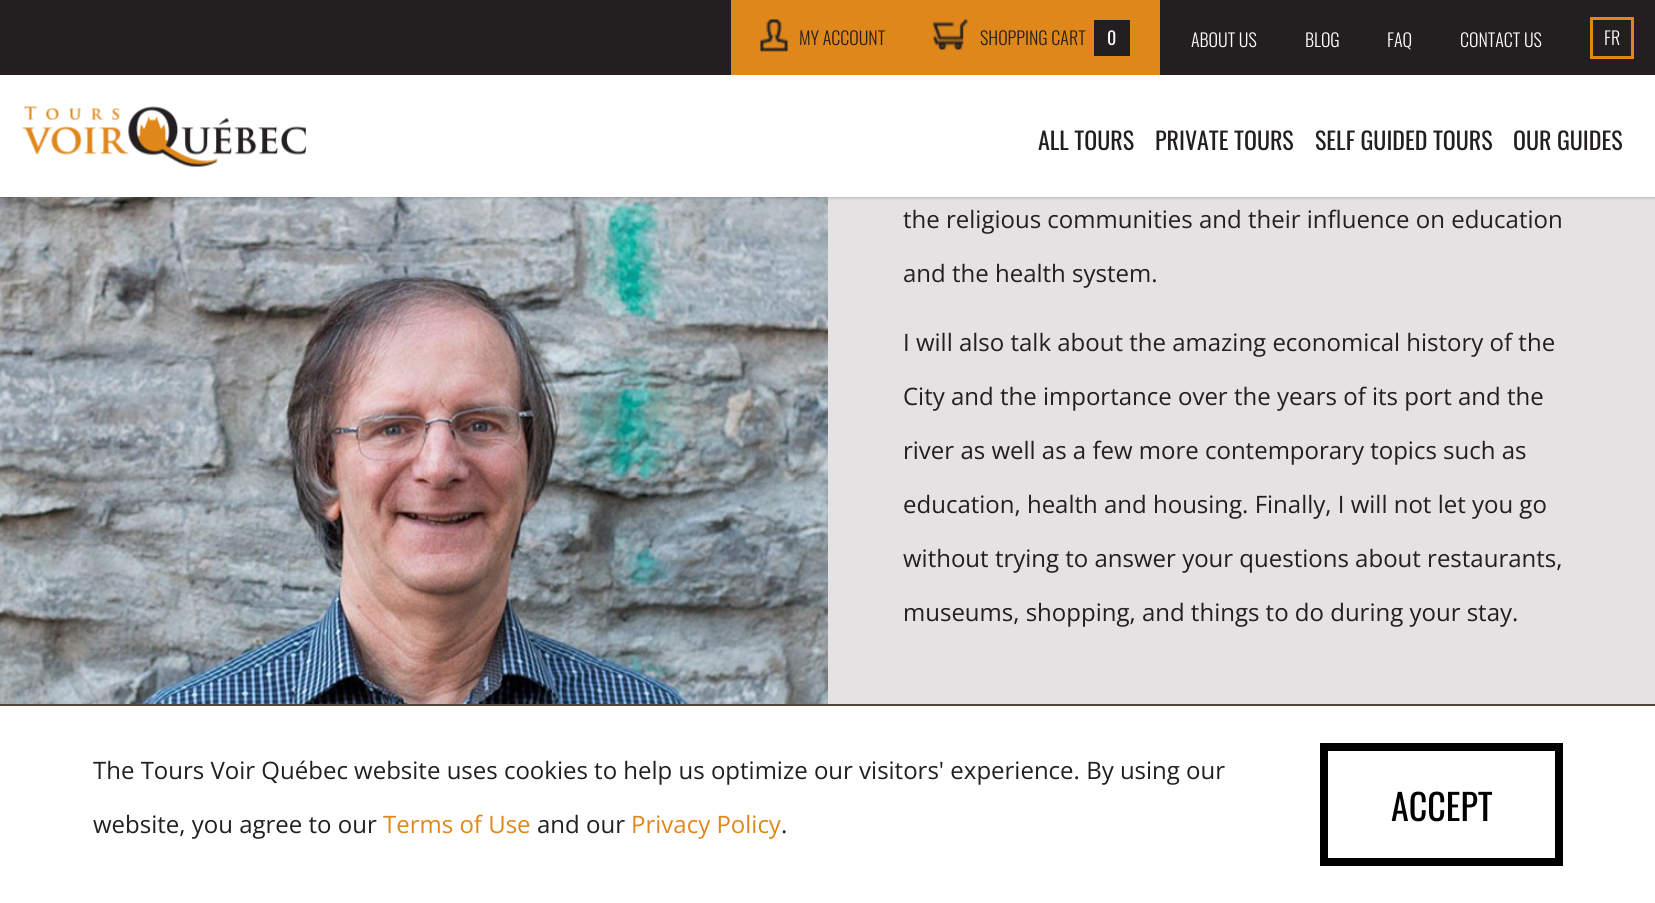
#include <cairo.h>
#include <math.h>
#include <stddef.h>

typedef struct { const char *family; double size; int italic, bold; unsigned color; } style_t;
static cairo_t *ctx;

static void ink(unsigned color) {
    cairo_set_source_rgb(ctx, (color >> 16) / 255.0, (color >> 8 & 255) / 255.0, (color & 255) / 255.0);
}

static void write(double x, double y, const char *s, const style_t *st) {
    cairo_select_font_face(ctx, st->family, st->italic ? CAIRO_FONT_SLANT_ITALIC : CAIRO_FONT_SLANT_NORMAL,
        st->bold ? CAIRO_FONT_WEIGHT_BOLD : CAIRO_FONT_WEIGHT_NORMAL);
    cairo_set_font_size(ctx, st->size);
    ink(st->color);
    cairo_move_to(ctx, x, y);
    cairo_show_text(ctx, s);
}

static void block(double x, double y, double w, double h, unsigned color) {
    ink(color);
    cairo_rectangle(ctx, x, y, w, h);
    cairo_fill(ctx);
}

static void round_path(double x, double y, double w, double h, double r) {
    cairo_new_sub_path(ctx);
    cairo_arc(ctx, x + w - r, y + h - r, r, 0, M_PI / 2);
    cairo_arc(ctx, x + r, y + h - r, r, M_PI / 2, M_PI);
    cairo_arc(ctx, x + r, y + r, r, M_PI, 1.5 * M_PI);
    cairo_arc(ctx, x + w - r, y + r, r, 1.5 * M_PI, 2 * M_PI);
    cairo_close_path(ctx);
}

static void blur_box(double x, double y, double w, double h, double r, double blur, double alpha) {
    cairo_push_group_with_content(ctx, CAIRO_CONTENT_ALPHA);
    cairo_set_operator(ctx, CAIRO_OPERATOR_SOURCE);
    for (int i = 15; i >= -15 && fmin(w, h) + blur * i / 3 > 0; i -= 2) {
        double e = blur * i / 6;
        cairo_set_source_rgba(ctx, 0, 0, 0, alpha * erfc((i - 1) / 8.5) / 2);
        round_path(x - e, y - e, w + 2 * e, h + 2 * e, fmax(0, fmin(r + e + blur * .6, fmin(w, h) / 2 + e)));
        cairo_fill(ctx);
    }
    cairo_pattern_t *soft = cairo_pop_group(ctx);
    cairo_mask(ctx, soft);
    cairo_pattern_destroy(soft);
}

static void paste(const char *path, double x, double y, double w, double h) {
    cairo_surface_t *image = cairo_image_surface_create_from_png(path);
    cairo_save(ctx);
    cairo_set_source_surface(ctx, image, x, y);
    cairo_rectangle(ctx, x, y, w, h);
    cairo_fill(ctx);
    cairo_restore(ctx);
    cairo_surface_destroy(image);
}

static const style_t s1 = {"Oswald Light", 18, 0, 0, 0x231f20};
static const style_t s2 = {"Oswald", 18, 0, 0, 0xffffff};
static const style_t s3 = {"Oswald Light", 18, 0, 0, 0xffffff};
static const style_t s4 = {"Oswald", 24, 0, 0, 0x231f20};
static const style_t s5 = {"Open Sans", 24, 0, 0, 0x231f20};
static const style_t s6 = {"Open Sans", 24, 0, 0, 0xe0871b};
static const style_t s7 = {"Oswald", 36, 0, 0, 0x000000};

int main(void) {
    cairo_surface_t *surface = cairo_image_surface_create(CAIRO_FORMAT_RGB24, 1655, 903);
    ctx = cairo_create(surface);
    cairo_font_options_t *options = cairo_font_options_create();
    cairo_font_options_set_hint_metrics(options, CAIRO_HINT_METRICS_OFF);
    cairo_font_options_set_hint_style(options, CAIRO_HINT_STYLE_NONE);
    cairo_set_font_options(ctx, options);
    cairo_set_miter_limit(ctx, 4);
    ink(0xffffff);
    cairo_paint(ctx);
    paste("pic4.png", 0, 197, 828, 507);
    block(828, 197, 827, 507, 0xe6e1e2);
    ink(0x000000);
    blur_box(0, 2, 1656, 195, 0, 2, 0.3);
    block(0, 0, 1655, 75, 0x231f20);
    block(731, 0, 429, 75, 0xe0871b);
    paste("pic1.png", 760, 19, 28, 33);
    write(799, 45, "MY ACCOUNT", &s1);
    paste("pic2.png", 933, 19, 35, 31);
    write(980, 45, "SHOPPING CART", &s1);
    block(1094, 20, 36, 36, 0x231f20);
    write(1107, 45, "0", &s2);
    write(1191, 47, "ABOUT US", &s3);
    write(1305, 47, "BLOG", &s3);
    write(1387, 47, "FAQ", &s3);
    write(1460, 47, "CONTACT US", &s3);
    cairo_rectangle(ctx, 1591.5, 18.5, 41, 39);
    ink(0xe0871b);
    cairo_set_line_width(ctx, 3);
    cairo_stroke(ctx);
    write(1604, 45, "FR", &s3);
    block(0, 75, 1655, 122, 0xffffff);
    paste("pic3.png", 22, 106, 284, 61);
    write(1038, 150, "ALL TOURS", &s4);
    write(1155, 150, "PRIVATE TOURS", &s4);
    write(1315, 150, "SELF GUIDED TOURS", &s4);
    write(1513, 150, "OUR GUIDES", &s4);
    write(903, 228, "the religious communities and their influence on education", &s5);
    write(903, 282, "and the health system.", &s5);
    write(903, 351, "I will also talk about the amazing economical history of the", &s5);
    write(903, 405, "City and the importance over the years of its port and the", &s5);
    write(903, 459, "river as well as a few more contemporary topics such as", &s5);
    write(903, 513, "education, health and housing. Finally, I will not let you go", &s5);
    write(903, 567, "without trying to answer your questions about restaurants,", &s5);
    write(903, 621, "museums, shopping, and things to do during your stay.", &s5);
    block(0, 704, 1655, 2, 0x4c493c);
    write(93, 779, "The Tours Voir Québec website uses cookies to help us optimize our visitors' experience. By using our", &s5);
    write(93, 833, "website, you agree to our", &s5);
    write(383, 833, "Terms of Use", &s6);
    write(537, 833, "and our", &s5);
    write(631, 833, "Privacy Policy", &s6);
    write(781, 833, ".", &s5);
    cairo_rectangle(ctx, 1324, 747, 235, 115);
    ink(0x000000);
    cairo_set_line_width(ctx, 8);
    cairo_stroke(ctx);
    write(1391, 821, "ACCEPT", &s7);
    cairo_surface_write_to_png(surface, "screenshot.png");
    cairo_font_options_destroy(options);
    cairo_destroy(ctx);
    cairo_surface_destroy(surface);
    return 0;
}
